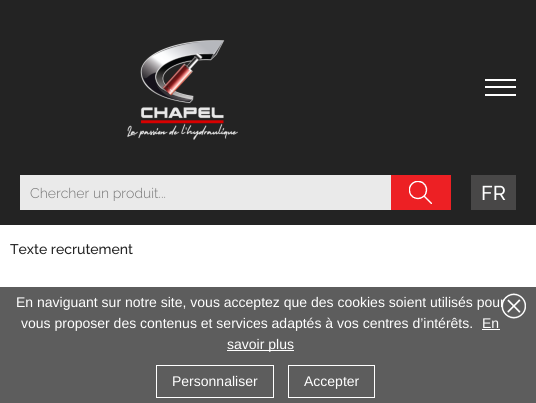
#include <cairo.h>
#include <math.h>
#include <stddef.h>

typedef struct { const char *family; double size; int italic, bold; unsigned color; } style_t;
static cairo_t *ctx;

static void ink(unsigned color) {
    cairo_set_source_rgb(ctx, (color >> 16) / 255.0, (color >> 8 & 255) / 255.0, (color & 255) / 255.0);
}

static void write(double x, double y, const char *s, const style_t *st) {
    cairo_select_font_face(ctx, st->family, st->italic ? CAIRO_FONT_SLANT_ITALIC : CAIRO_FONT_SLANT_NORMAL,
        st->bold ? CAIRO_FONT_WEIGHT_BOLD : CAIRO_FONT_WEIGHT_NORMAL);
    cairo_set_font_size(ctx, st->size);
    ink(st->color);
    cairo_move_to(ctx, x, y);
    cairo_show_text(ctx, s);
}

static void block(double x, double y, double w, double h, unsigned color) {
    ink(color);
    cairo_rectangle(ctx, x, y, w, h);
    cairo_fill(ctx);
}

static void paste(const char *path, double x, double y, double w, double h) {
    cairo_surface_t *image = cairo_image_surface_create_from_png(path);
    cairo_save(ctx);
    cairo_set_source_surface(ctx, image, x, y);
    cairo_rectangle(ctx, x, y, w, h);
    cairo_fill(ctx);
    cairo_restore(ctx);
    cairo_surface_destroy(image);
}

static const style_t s1 = {"Raleway Light", 14, 0, 0, 0x757575};
static const style_t s2 = {"Raleway Medium", 20, 0, 0, 0xffffff};
static const style_t s3 = {"Raleway Medium", 14, 0, 0, 0x232323};
static const style_t s4 = {"Liberation Sans", 14, 0, 0, 0xffffff};

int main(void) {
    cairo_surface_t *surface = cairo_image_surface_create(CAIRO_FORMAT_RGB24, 536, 403);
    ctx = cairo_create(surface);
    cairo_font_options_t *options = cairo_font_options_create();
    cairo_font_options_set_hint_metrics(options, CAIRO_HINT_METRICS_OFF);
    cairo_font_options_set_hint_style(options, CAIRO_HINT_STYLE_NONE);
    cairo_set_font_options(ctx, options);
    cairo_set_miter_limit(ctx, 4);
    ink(0xffffff);
    cairo_paint(ctx);
    block(0, 0, 536, 225, 0x232323);
    paste("pic1.png", 127, 40, 111, 100);
    paste("pic2.png", 485, 79, 31, 17);
    block(20, 175, 371, 35, 0xeaeaea);
    write(30, 198, "Chercher un produit...", &s1);
    block(391, 175, 60, 35, 0xed2024);
    paste("pic3.png", 409, 181, 23, 23);
    block(471, 175, 45, 35, 0x484747);
    write(481, 200, "FR", &s2);
    write(10, 254, "Texte recrutement", &s3);
    block(0, 287, 536, 116, 0x5d5d5d);
    write(16, 307, "En naviguant sur notre site, vous acceptez que des cookies soient utilisés pour", &s4);
    paste("pic4.png", 501, 293, 25, 26);
    write(21, 328, "vous proposer des contenus et services adaptés à vos centres d’intérêts.", &s4);
    write(482, 328, "En", &s4);
    block(482, 329, 18, 1, 0xffffff);
    block(227, 350, 67, 1, 0xffffff);
    write(227, 349, "savoir plus", &s4);
    cairo_rectangle(ctx, 156.5, 365.5, 117, 32);
    cairo_set_line_width(ctx, 1);
    cairo_stroke(ctx);
    write(172, 386, "Personnaliser", &s4);
    cairo_rectangle(ctx, 288.5, 365.5, 86, 32);
    cairo_stroke(ctx);
    write(304, 386, "Accepter", &s4);
    cairo_surface_write_to_png(surface, "screenshot.png");
    cairo_font_options_destroy(options);
    cairo_destroy(ctx);
    cairo_surface_destroy(surface);
    return 0;
}
